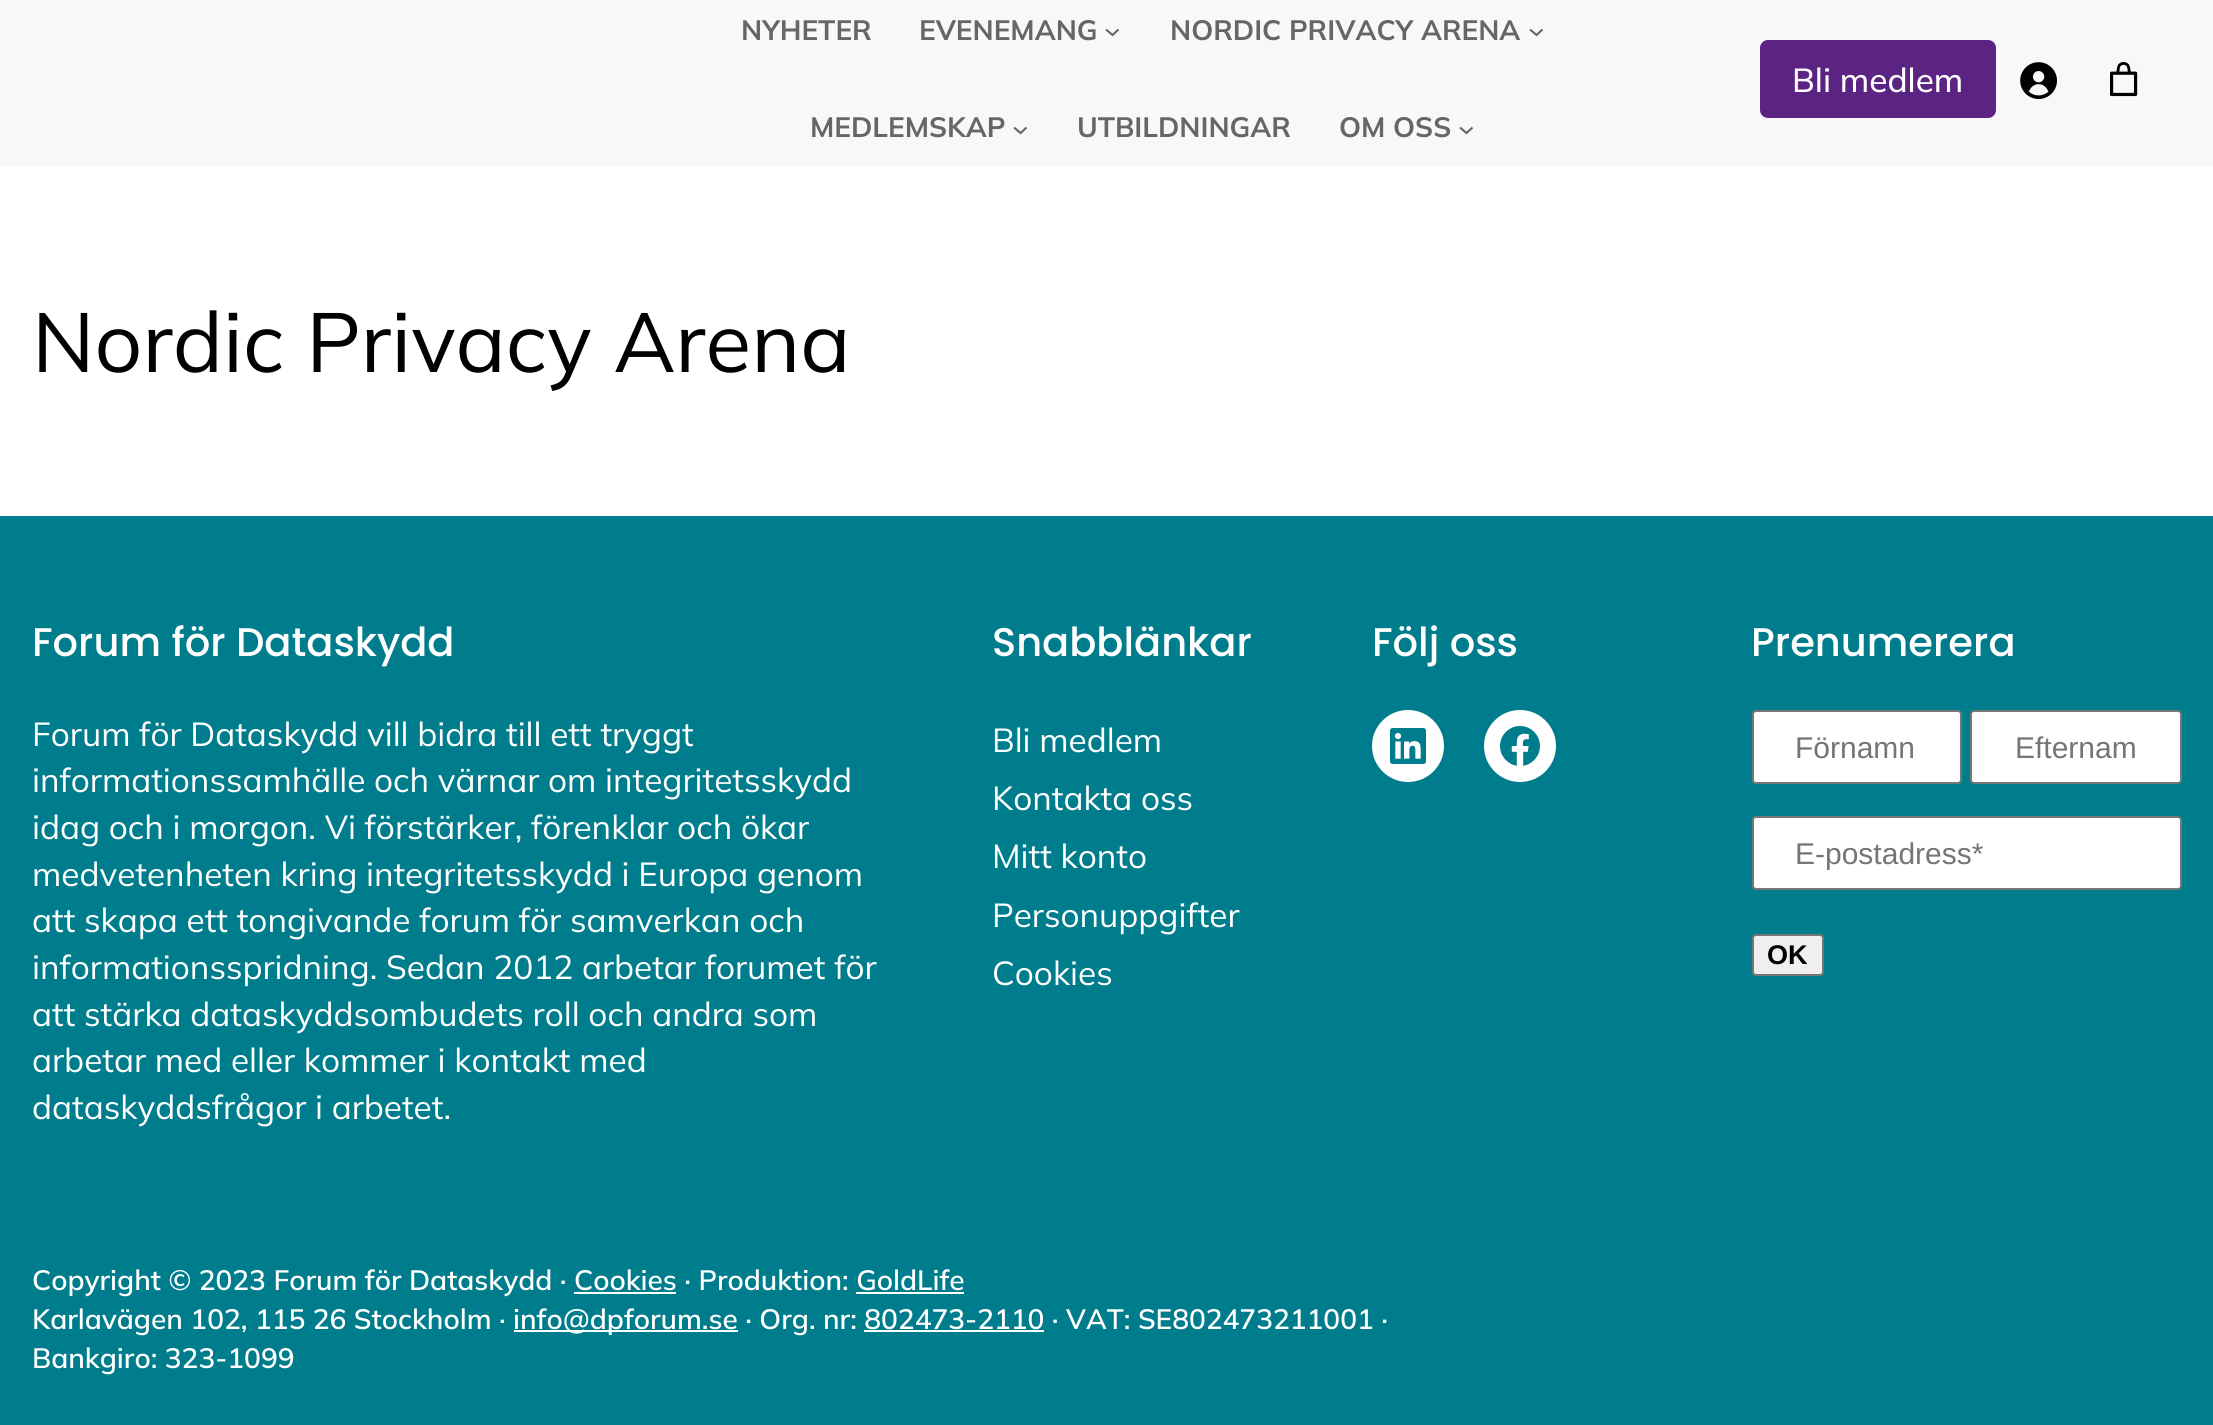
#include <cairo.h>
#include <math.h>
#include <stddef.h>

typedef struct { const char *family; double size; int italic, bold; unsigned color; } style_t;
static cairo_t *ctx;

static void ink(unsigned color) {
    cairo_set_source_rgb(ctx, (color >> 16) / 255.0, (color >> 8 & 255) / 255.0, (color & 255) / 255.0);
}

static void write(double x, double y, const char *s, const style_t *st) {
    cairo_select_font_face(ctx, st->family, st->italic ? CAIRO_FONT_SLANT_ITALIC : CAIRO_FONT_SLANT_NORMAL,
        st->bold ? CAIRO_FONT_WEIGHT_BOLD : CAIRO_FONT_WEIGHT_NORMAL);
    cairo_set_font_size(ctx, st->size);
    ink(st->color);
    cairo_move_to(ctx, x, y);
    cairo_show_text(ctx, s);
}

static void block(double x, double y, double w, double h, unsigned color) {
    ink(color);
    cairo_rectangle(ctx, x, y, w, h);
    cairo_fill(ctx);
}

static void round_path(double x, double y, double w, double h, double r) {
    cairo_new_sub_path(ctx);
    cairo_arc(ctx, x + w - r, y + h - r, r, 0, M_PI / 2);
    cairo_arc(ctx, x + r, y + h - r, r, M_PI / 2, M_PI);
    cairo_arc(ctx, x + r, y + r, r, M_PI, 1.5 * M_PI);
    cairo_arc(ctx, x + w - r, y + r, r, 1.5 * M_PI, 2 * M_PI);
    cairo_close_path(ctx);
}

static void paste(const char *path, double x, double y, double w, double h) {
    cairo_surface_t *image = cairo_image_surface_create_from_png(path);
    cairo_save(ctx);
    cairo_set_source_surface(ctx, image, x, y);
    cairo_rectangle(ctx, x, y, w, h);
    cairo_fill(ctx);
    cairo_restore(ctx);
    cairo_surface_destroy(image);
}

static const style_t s1 = {"Mulish", 28, 0, 1, 0x666666};
static const style_t s2 = {"Mulish Medium", 33.35, 0, 0, 0xffffff};
static const style_t s3 = {"Mulish", 83.75, 0, 0, 0x000000};
static const style_t s4 = {"Poppins Medium", 40, 0, 0, 0xffffff};
static const style_t s5 = {"Mulish", 33.35, 0, 0, 0xffffff};
static const style_t s6 = {"Liberation Sans", 30, 0, 0, 0x757575};
static const style_t s7 = {"Liberation Sans", 27, 0, 1, 0x000000};
static const style_t s8 = {"Mulish SemiBold", 28, 0, 0, 0xffffff};

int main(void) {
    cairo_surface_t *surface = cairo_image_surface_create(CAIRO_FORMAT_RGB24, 2213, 1425);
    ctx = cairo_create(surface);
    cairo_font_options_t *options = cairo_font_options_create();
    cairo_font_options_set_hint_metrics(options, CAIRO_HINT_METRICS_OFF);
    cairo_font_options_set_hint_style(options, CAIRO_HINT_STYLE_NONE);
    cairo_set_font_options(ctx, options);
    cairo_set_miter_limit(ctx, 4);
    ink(0xffffff);
    cairo_paint(ctx);
    block(0, 0, 2213, 166, 0xf8f8f8);
    write(741, 40, "NYHETER", &s1);
    write(919, 40, "EVENEMANG", &s1);
    cairo_new_path(ctx);
    cairo_move_to(ctx, 1106, 29.5);
    cairo_line_to(ctx, 1112.5, 35);
    cairo_line_to(ctx, 1118.5, 29.5);
    cairo_set_line_width(ctx, 2.1);
    cairo_stroke(ctx);
    write(1170, 40, "NORDIC PRIVACY ARENA", &s1);
    cairo_new_path(ctx);
    cairo_move_to(ctx, 1530, 29.5);
    cairo_line_to(ctx, 1536.5, 35);
    cairo_line_to(ctx, 1542.5, 29.5);
    cairo_stroke(ctx);
    write(810, 137, "MEDLEMSKAP", &s1);
    cairo_new_path(ctx);
    cairo_move_to(ctx, 1014, 127.5);
    cairo_line_to(ctx, 1020.5, 133);
    cairo_line_to(ctx, 1026.5, 127.5);
    cairo_stroke(ctx);
    write(1077, 137, "UTBILDNINGAR", &s1);
    write(1339, 137, "OM OSS", &s1);
    cairo_new_path(ctx);
    cairo_move_to(ctx, 1460, 127.5);
    cairo_line_to(ctx, 1466.5, 133);
    cairo_line_to(ctx, 1472.5, 127.5);
    cairo_stroke(ctx);
    ink(0x5c2482);
    round_path(1760, 40, 236, 78, 8);
    cairo_fill(ctx);
    write(1792, 92, "Bli medlem", &s2);
    paste("pic1.png", 2020, 62, 37, 37);
    paste("pic2.png", 2110, 62, 28, 35);
    write(32, 372, "Nordic Privacy Arena", &s3);
    block(0, 516, 2213, 909, 0x007d8c);
    write(32, 656, "Forum för Dataskydd", &s4);
    write(32, 746, "Forum för Dataskydd vill bidra till ett tryggt", &s5);
    write(32, 792, "informationssamhälle och värnar om integritetsskydd", &s5);
    write(32, 839, "idag och i morgon. Vi förstärker, förenklar och ökar", &s5);
    write(32, 886, "medvetenheten kring integritetsskydd i Europa genom", &s5);
    write(32, 932, "att skapa ett tongivande forum för samverkan och", &s5);
    write(32, 979, "informationsspridning. Sedan 2012 arbetar forumet för", &s5);
    write(32, 1026, "att stärka dataskyddsombudets roll och andra som", &s5);
    write(32, 1072, "arbetar med eller kommer i kontakt med", &s5);
    write(32, 1119, "dataskyddsfrågor i arbetet.", &s5);
    write(992, 656, "Snabblänkar", &s4);
    write(992, 752, "Bli medlem", &s5);
    write(992, 810, "Kontakta oss", &s5);
    write(992, 868, "Mitt konto", &s5);
    write(992, 927, "Personuppgifter", &s5);
    write(992, 985, "Cookies", &s5);
    write(1372, 656, "Följ oss", &s4);
    cairo_new_path(ctx);
    cairo_arc(ctx, 1408, 746, 36, 0, 2 * M_PI);
    cairo_fill(ctx);
    paste("pic3.png", 1390, 728, 36, 36);
    cairo_arc(ctx, 1520, 746, 36, 0, 2 * M_PI);
    cairo_fill(ctx);
    paste("pic4.png", 1500, 726, 40, 40);
    write(1751, 656, "Prenumerera", &s4);
    round_path(1753, 711, 208, 72, 3);
    cairo_fill_preserve(ctx);
    ink(0x767676);
    cairo_set_line_width(ctx, 2);
    cairo_stroke(ctx);
    write(1795, 758, "Förnamn", &s6);
    ink(0xffffff);
    round_path(1971, 711, 210, 72, 3);
    cairo_fill_preserve(ctx);
    ink(0x767676);
    cairo_stroke(ctx);
    write(2015, 758, "Efternam", &s6);
    ink(0xffffff);
    round_path(1753, 817, 428, 72, 3);
    cairo_fill_preserve(ctx);
    ink(0x767676);
    cairo_stroke(ctx);
    cairo_save(ctx);
    cairo_rectangle(ctx, 1796, 836, 342, 34);
    cairo_clip(ctx);
    write(1795, 864, "E-postadress*", &s6);
    cairo_restore(ctx);
    ink(0xefefef);
    round_path(1753, 935, 70, 40, 3);
    cairo_fill_preserve(ctx);
    ink(0x767676);
    cairo_stroke(ctx);
    write(1767, 964, "OK", &s7);
    write(32, 1290, "Copyright © 2023 Forum för Dataskydd · Cookies · Produktion: GoldLife", &s8);
    block(574, 1292, 102, 2, 0xffffff);
    block(856, 1292, 108, 2, 0xffffff);
    write(32, 1329, "Karlavägen 102, 115 26 Stockholm ·", &s8);
    block(514, 1330, 224, 2, 0xffffff);
    write(513, 1329, "info@dpforum.se · Org. nr: 802473-2110 · VAT: SE802473211001 ·", &s8);
    block(864, 1330, 180, 2, 0xffffff);
    write(32, 1368, "Bankgiro: 323-1099", &s8);
    cairo_surface_write_to_png(surface, "screenshot.png");
    cairo_font_options_destroy(options);
    cairo_destroy(ctx);
    cairo_surface_destroy(surface);
    return 0;
}
